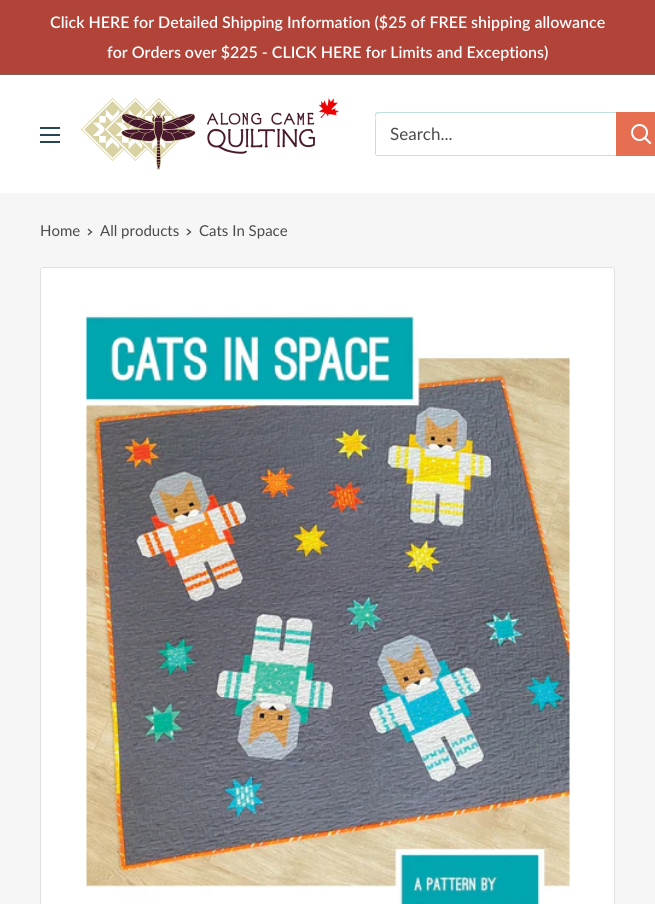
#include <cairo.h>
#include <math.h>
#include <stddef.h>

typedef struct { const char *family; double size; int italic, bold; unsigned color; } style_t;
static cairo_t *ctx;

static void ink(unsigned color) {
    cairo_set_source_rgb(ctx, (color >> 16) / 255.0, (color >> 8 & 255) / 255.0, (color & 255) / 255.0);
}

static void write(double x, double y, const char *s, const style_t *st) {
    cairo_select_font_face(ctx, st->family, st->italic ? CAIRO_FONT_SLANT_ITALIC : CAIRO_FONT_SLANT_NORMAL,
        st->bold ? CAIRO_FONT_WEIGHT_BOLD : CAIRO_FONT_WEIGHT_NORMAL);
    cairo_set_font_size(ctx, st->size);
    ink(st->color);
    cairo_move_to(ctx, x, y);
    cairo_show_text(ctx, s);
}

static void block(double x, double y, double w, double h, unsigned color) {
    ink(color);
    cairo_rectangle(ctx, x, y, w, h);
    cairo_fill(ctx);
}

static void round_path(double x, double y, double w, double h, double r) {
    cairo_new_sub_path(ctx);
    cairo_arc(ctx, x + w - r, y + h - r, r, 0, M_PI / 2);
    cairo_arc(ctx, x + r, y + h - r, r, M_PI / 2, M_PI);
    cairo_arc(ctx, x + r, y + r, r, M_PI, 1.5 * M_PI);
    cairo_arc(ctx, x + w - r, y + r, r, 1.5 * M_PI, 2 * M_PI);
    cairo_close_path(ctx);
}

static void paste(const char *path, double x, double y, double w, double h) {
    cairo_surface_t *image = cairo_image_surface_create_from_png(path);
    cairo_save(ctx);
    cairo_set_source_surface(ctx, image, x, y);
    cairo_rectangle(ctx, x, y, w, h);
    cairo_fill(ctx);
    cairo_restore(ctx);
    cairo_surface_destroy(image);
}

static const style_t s1 = {"Lato SemiBold", 16, 0, 0, 0xffffff};
static const style_t s2 = {"Lato", 17, 0, 0, 0x4a4a4a};
static const style_t s3 = {"Lato", 15, 0, 0, 0x4a4a4a};

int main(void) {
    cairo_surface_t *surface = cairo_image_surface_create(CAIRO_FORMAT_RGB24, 655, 904);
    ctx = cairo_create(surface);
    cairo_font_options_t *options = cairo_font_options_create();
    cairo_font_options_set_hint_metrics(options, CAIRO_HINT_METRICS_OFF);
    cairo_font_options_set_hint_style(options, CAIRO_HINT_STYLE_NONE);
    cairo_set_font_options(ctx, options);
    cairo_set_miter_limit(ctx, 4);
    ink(0xf6f6f6);
    cairo_paint(ctx);
    block(0, 0, 655, 74, 0xb14338);
    block(0, 74, 655, 1, 0x895e52);
    write(50, 28, "Click HERE for Detailed Shipping Information ($25 of FREE shipping allowance", &s1);
    write(107, 58, "for Orders over $225 - CLICK HERE for Limits and Exceptions)", &s1);
    block(0, 75, 655, 118, 0xffffff);
    paste("pic1.png", 40, 127, 20, 16);
    paste("pic2.png", 81, 98, 258, 72);
    ink(0xbfe2dd);
    cairo_new_path(ctx);
    cairo_move_to(ctx, 376, 155);
    cairo_curve_to(ctx, 376, 156, 377, 156, 378, 156);
    cairo_line_to(ctx, 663, 156);
    cairo_curve_to(ctx, 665, 156, 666, 155, 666, 153);
    cairo_line_to(ctx, 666, 115);
    cairo_curve_to(ctx, 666, 114, 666, 113, 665, 113);
    cairo_line_to(ctx, 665, 146);
    cairo_curve_to(ctx, 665, 148, 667, 155, 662, 155);
    cairo_close_path(ctx);
    cairo_fill(ctx);
    cairo_new_path(ctx);
    cairo_move_to(ctx, 379, 113);
    cairo_line_to(ctx, 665, 113);
    cairo_curve_to(ctx, 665, 112, 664, 112, 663, 112);
    cairo_line_to(ctx, 378, 112);
    cairo_curve_to(ctx, 376, 112, 375, 113, 375, 115);
    cairo_line_to(ctx, 375, 153);
    cairo_curve_to(ctx, 375, 154, 375, 155, 376, 155);
    cairo_line_to(ctx, 376, 122);
    cairo_curve_to(ctx, 376, 120, 374, 113, 379, 113);
    cairo_close_path(ctx);
    cairo_fill(ctx);
    write(390, 140, "Search...", &s2);
    block(616, 112, 39, 44, 0xe76f51);
    cairo_new_path(ctx);
    cairo_move_to(ctx, 650, 143);
    cairo_line_to(ctx, 645, 138);
    ink(0xffffff);
    cairo_set_line_cap(ctx, CAIRO_LINE_CAP_SQUARE);
    cairo_stroke(ctx);
    cairo_arc(ctx, 639.5, 132.5, 7.5, 0, 2 * M_PI);
    cairo_set_line_cap(ctx, CAIRO_LINE_CAP_BUTT);
    cairo_stroke(ctx);
    write(40, 236, "Home", &s3);
    cairo_new_path(ctx);
    cairo_move_to(ctx, 88.5, 229.5);
    cairo_line_to(ctx, 91.5, 232);
    cairo_line_to(ctx, 88.5, 234.5);
    cairo_set_line_width(ctx, 1.3);
    cairo_set_line_cap(ctx, CAIRO_LINE_CAP_SQUARE);
    cairo_stroke(ctx);
    write(100, 236, "All products", &s3);
    cairo_new_path(ctx);
    cairo_move_to(ctx, 187.5, 229.5);
    cairo_line_to(ctx, 190.5, 232);
    cairo_line_to(ctx, 187.5, 234.5);
    cairo_stroke(ctx);
    write(199, 236, "Cats In Space", &s3);
    ink(0xffffff);
    round_path(40.5, 267.5, 574, 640, 2.5);
    cairo_fill_preserve(ctx);
    ink(0xe1e1e1);
    cairo_set_line_width(ctx, 1);
    cairo_set_line_cap(ctx, CAIRO_LINE_CAP_BUTT);
    cairo_stroke(ctx);
    paste("pic3.png", 86, 314, 484, 590);
    cairo_surface_write_to_png(surface, "screenshot.png");
    cairo_font_options_destroy(options);
    cairo_destroy(ctx);
    cairo_surface_destroy(surface);
    return 0;
}
